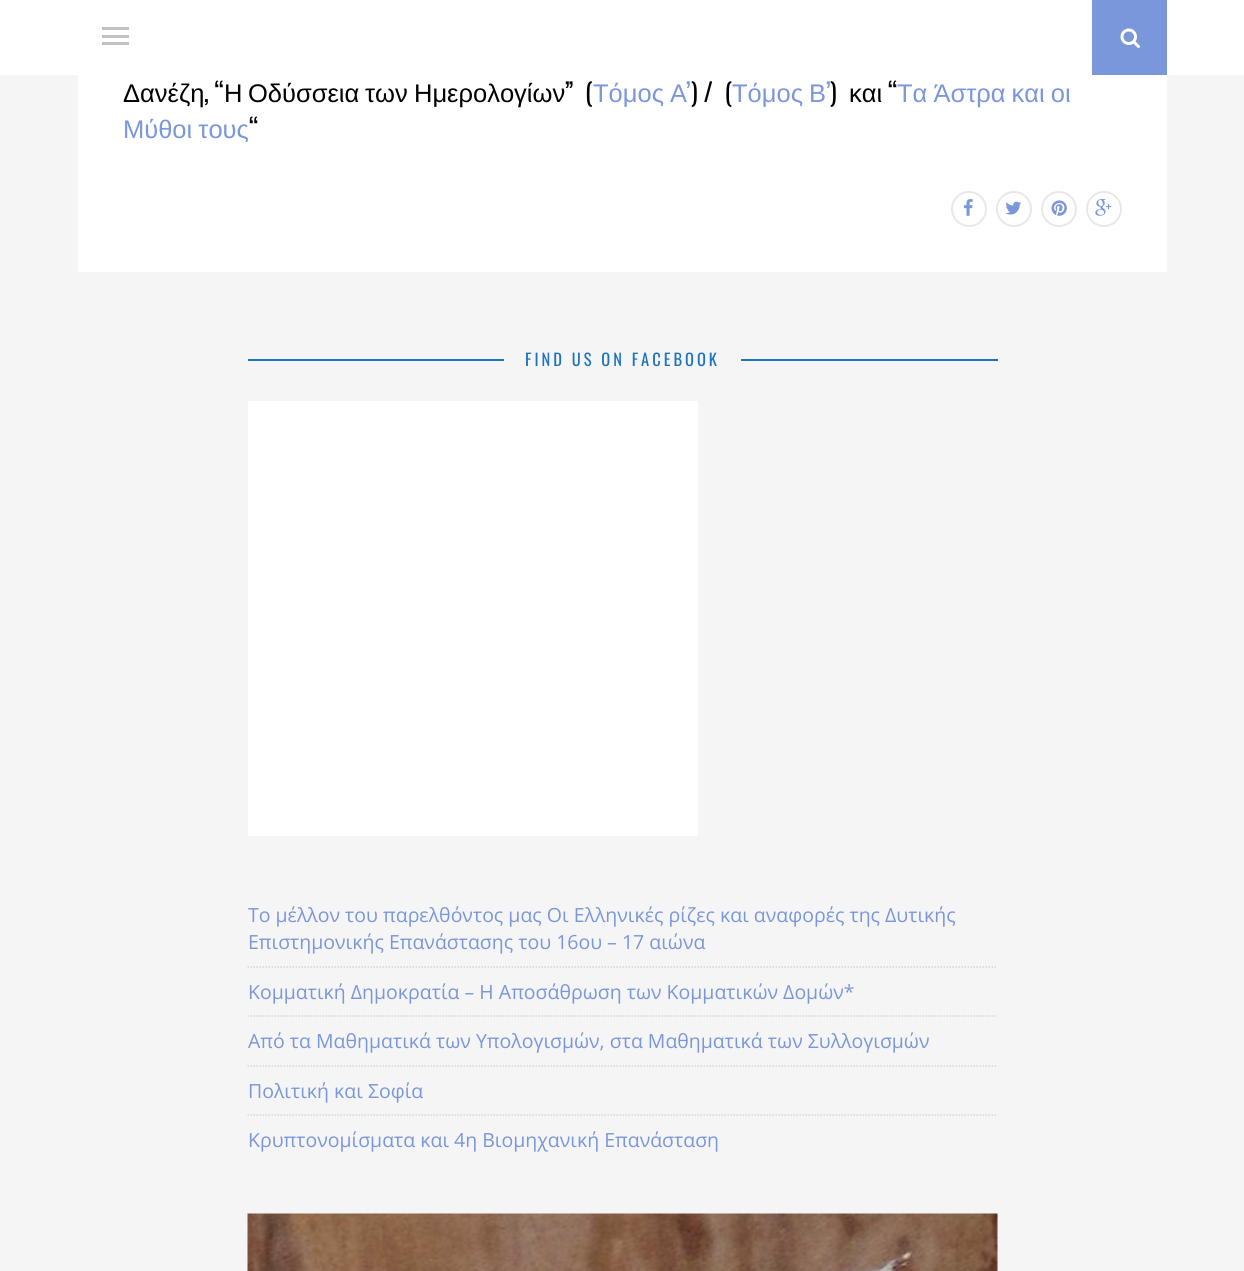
#include <cairo.h>
#include <math.h>
#include <stddef.h>

typedef struct { const char *family; double size; int italic, bold; unsigned color; } style_t;
static cairo_t *ctx;

static void ink(unsigned color) {
    cairo_set_source_rgb(ctx, (color >> 16) / 255.0, (color >> 8 & 255) / 255.0, (color & 255) / 255.0);
}

static void write(double x, double y, const char *s, const style_t *st) {
    cairo_select_font_face(ctx, st->family, st->italic ? CAIRO_FONT_SLANT_ITALIC : CAIRO_FONT_SLANT_NORMAL,
        st->bold ? CAIRO_FONT_WEIGHT_BOLD : CAIRO_FONT_WEIGHT_NORMAL);
    cairo_set_font_size(ctx, st->size);
    ink(st->color);
    cairo_move_to(ctx, x, y);
    cairo_show_text(ctx, s);
}

static void write_spaced(double x, double y, const char *s, double letter, double word) {
    cairo_move_to(ctx, x, y);
    while (*s) {
        char ch[5] = {0};
        int n = 0;
        do ch[n++] = *s++; while ((*s & 0xC0) == 0x80);
        cairo_show_text(ctx, ch);
        cairo_rel_move_to(ctx, letter + word * (*ch == ' '), 0);
    }
}

static void block(double x, double y, double w, double h, unsigned color) {
    ink(color);
    cairo_rectangle(ctx, x, y, w, h);
    cairo_fill(ctx);
}

static void paste(const char *path, double x, double y, double w, double h) {
    cairo_surface_t *image = cairo_image_surface_create_from_png(path);
    cairo_save(ctx);
    cairo_set_source_surface(ctx, image, x, y);
    cairo_rectangle(ctx, x, y, w, h);
    cairo_fill(ctx);
    cairo_restore(ctx);
    cairo_surface_destroy(image);
}

static const style_t s1 = {"Liberation Sans", 25.5, 0, 0, 0x000000};
static const style_t s2 = {"Oswald", 25.5, 0, 0, 0x000000};
static const style_t s3 = {"Oswald", 25.5, 0, 0, 0x7a97db};
static const style_t s4 = {"Open Sans", 19.5, 0, 0, 0x7a97db};

int main(void) {
    cairo_surface_t *surface = cairo_image_surface_create(CAIRO_FORMAT_RGB24, 1244, 1271);
    ctx = cairo_create(surface);
    cairo_font_options_t *options = cairo_font_options_create();
    cairo_font_options_set_hint_metrics(options, CAIRO_HINT_METRICS_OFF);
    cairo_font_options_set_hint_style(options, CAIRO_HINT_STYLE_NONE);
    cairo_set_font_options(ctx, options);
    cairo_set_miter_limit(ctx, 4);
    ink(0xf5f5f5);
    cairo_paint(ctx);
    block(0, 0, 1244, 75, 0xffffff);
    block(102, 27, 27, 3, 0xc2c2c2);
    block(102, 35, 27, 3, 0xc2c2c2);
    block(102, 42, 27, 3, 0xc2c2c2);
    block(1092, 0, 75, 75, 0x7a97db);
    paste("pic1.png", 1120, 28, 20, 20);
    block(78, 75, 1089, 197, 0xffffff);
    write(123, 102, "Δανέζη", &s1);
    write(204, 102, ", “", &s2);
    write(224, 102, "Η", &s1);
    write(248, 102, "Οδύσσεια", &s1);
    write(365, 102, "των", &s1);
    write(414, 102, "Ημερολογίων", &s1);
    write(565, 102, "”  (", &s2);
    cairo_select_font_face(ctx, "Liberation Sans", CAIRO_FONT_SLANT_NORMAL, CAIRO_FONT_WEIGHT_NORMAL);
    ink(0x7a97db);
    write_spaced(593, 102, "Τόμος Α", 0, -1);
    write(686, 102, "’", &s3);
    write(691, 102, ") /  (", &s2);
    cairo_select_font_face(ctx, "Liberation Sans", CAIRO_FONT_SLANT_NORMAL, CAIRO_FONT_WEIGHT_NORMAL);
    ink(0x7a97db);
    write_spaced(732, 102, "Τόμος Β", 0, -1);
    write(826, 102, "’", &s3);
    write(830, 102, ")", &s2);
    write(849, 102, "και", &s1);
    write(888, 102, "“", &s2);
    cairo_select_font_face(ctx, "Liberation Sans", CAIRO_FONT_SLANT_NORMAL, CAIRO_FONT_WEIGHT_NORMAL);
    ink(0x7a97db);
    write_spaced(897, 102, "Τα Άστρα και οι", 0, -1);
    write_spaced(123, 138, "Μύθοι τους", 0, -1);
    write(249, 138, "“", &s2);
    cairo_new_path(ctx);
    cairo_arc(ctx, 969, 209, 17, 0, 2 * M_PI);
    ink(0xe8e8e8);
    cairo_stroke(ctx);
    paste("pic2.png", 963, 199, 10, 17);
    cairo_arc(ctx, 1014, 209, 17, 0, 2 * M_PI);
    cairo_stroke(ctx);
    paste("pic3.png", 1005, 201, 17, 14);
    cairo_arc(ctx, 1059, 209, 17, 0, 2 * M_PI);
    cairo_stroke(ctx);
    paste("pic4.png", 1051, 200, 16, 16);
    cairo_arc(ctx, 1104, 209, 17, 0, 2 * M_PI);
    cairo_stroke(ctx);
    paste("pic5.png", 1095, 199, 17, 17);
    block(248, 359, 256, 2, 0x1e73be);
    cairo_set_font_size(ctx, 16.5);
    write_spaced(525, 366, "FIND US ON FACEBOOK", 3, 0);
    block(741, 359, 257, 2, 0x1e73be);
    block(248, 401, 450, 435, 0xffffff);
    cairo_new_path(ctx);
    cairo_move_to(ctx, 247.5, 967);
    cairo_line_to(ctx, 997.5, 967);
    ink(0xd5d5d5);
    cairo_set_line_width(ctx, 1.5);
    cairo_set_dash(ctx, (double[]){1.5, 1.5}, 2, 0);
    cairo_stroke(ctx);
    write(248, 922, "Το μέλλον του παρελθόντος μας Οι Ελληνικές ρίζες και αναφορές της Δυτικής", &s4);
    write(248, 949, "Επιστημονικής Επανάστασης του 16ου – 17 αιώνα", &s4);
    cairo_new_path(ctx);
    cairo_move_to(ctx, 247.5, 1016);
    cairo_line_to(ctx, 997.5, 1016);
    ink(0xd5d5d5);
    cairo_stroke(ctx);
    write(248, 999, "Κομματική Δημοκρατία – H Αποσάθρωση των Κομματικών Δομών*", &s4);
    cairo_new_path(ctx);
    cairo_move_to(ctx, 247.5, 1066);
    cairo_line_to(ctx, 997.5, 1066);
    ink(0xd5d5d5);
    cairo_stroke(ctx);
    write(248, 1048, "Από τα Μαθηματικά των Υπολογισμών, στα Μαθηματικά των Συλλογισμών", &s4);
    cairo_new_path(ctx);
    cairo_move_to(ctx, 247.5, 1115);
    cairo_line_to(ctx, 997.5, 1115);
    ink(0xd5d5d5);
    cairo_stroke(ctx);
    write(248, 1098, "Πολιτική και Σοφία", &s4);
    write(248, 1147, "Κρυπτονομίσματα και 4η Βιομηχανική Επανάσταση", &s4);
    paste("pic6.png", 247, 1213, 751, 58);
    cairo_surface_write_to_png(surface, "screenshot.png");
    cairo_font_options_destroy(options);
    cairo_destroy(ctx);
    cairo_surface_destroy(surface);
    return 0;
}
